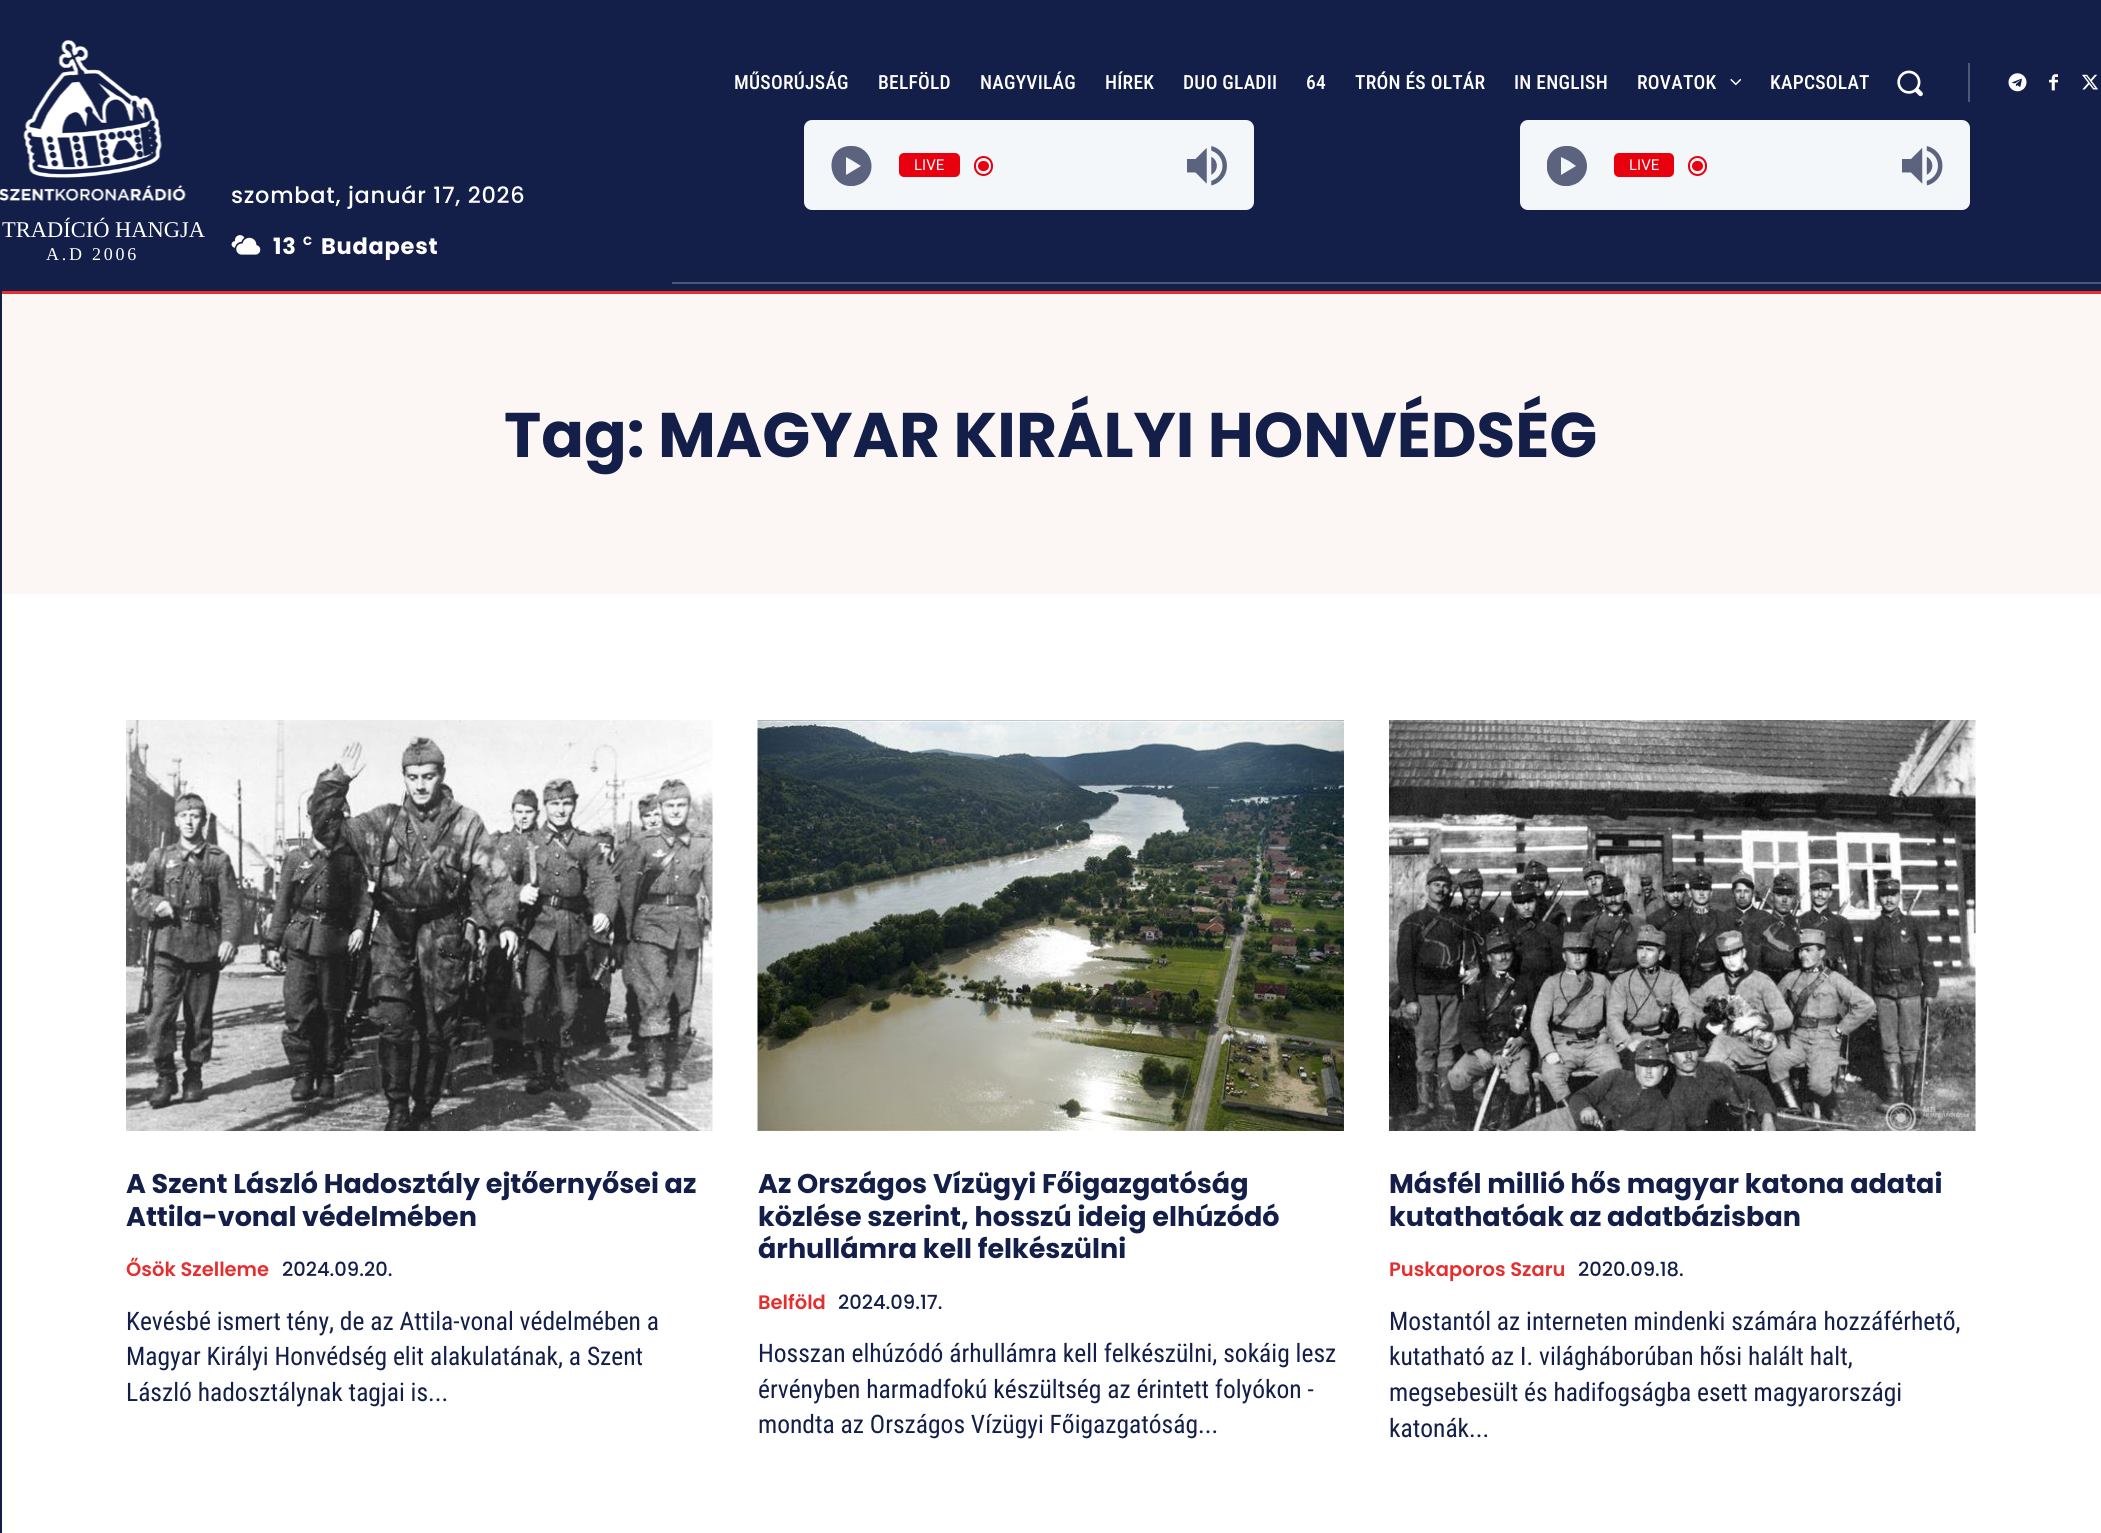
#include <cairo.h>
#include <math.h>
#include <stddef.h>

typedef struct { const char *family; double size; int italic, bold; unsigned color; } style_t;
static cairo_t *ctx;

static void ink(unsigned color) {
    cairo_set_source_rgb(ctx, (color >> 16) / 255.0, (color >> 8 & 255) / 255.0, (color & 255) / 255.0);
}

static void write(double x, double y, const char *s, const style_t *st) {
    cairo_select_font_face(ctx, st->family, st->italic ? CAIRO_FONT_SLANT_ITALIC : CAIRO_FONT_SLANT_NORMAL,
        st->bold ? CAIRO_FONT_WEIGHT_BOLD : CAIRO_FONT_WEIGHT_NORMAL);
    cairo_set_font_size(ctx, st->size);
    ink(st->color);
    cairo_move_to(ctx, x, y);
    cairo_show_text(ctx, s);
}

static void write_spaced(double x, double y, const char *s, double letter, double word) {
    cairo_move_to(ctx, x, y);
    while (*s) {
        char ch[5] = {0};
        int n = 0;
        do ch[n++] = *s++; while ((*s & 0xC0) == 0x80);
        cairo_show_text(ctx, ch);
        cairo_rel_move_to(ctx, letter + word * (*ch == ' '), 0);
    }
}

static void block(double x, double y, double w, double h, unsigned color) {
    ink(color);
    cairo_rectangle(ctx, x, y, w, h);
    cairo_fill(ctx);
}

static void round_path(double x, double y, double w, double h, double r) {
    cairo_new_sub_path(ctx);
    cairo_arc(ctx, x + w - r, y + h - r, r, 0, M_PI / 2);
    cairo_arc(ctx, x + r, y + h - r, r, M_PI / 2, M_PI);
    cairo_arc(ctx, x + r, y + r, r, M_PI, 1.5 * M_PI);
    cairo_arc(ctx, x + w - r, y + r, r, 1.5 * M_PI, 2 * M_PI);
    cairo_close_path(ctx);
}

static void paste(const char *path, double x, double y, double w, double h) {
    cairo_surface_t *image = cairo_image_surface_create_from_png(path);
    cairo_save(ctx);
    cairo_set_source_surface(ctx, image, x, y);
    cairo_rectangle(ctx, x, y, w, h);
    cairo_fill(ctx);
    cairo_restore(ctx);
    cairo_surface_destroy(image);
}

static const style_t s1 = {"Roboto", 15, 0, 0, 0xffffff};
static const style_t s2 = {"Liberation Serif", 22.5, 0, 0, 0xffffff};
static const style_t s3 = {"Poppins", 63, 0, 1, 0x131f49};
static const style_t s4 = {"Poppins", 27, 0, 1, 0x131f49};
static const style_t s5 = {"Poppins SemiBold", 19.5, 0, 0, 0xe52e2e};
static const style_t s6 = {"Poppins Medium", 19.5, 0, 0, 0x131f49};
static const style_t s7 = {"Roboto Condensed", 25.5, 0, 0, 0x131f49};

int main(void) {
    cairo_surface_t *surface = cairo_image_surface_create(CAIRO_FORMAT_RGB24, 2101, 1533);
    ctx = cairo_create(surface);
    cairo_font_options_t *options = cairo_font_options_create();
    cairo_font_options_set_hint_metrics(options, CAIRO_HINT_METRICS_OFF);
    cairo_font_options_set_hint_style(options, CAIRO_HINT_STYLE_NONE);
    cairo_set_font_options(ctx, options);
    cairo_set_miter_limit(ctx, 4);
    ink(0x131f49);
    cairo_paint(ctx);
    cairo_select_font_face(ctx, "Roboto Condensed Medium", CAIRO_FONT_SLANT_NORMAL, CAIRO_FONT_WEIGHT_NORMAL);
    cairo_set_font_size(ctx, 19.5);
    ink(0xffffff);
    write_spaced(734, 89, "MŰSORÚJSÁG", 0.25, 0);
    write_spaced(878, 89, "BELFÖLD", 0.25, 0);
    write_spaced(980, 89, "NAGYVILÁG", 0.25, 0);
    write_spaced(1105, 89, "HÍREK", 0.25, 0);
    write_spaced(1183, 89, "DUO GLADII", 0.25, 0);
    write_spaced(1306, 89, "64", 0.25, 0);
    write_spaced(1355, 89, "TRÓN ÉS OLTÁR", 0.25, 0);
    write_spaced(1514, 89, "IN ENGLISH", 0.25, 0);
    write_spaced(1637, 89, "ROVATOK", 0.25, 0);
    paste("pic1.png", 1730, 78, 12, 8);
    write_spaced(1770, 89, "KAPCSOLAT", 0.25, 0);
    paste("pic2.png", 1897, 70, 26, 27);
    block(1968, 63, 2, 39, 0x4e5777);
    paste("pic3.png", 2008, 73, 19, 19);
    paste("pic4.png", 2049, 74, 9, 17);
    paste("pic5.png", 2082, 74, 16, 16);
    ink(0xf4f7f9);
    round_path(804, 120, 450, 90, 8);
    cairo_fill(ctx);
    cairo_save(ctx);
    cairo_rectangle(ctx, 831, 146, 41, 40);
    cairo_clip(ctx);
    ink(0x5c637e);
    cairo_new_path(ctx);
    cairo_move_to(ctx, 849, 146);
    cairo_curve_to(ctx, 823, 148, 827, 189, 854, 186);
    cairo_curve_to(ctx, 858, 185, 862, 184, 865, 181);
    cairo_curve_to(ctx, 879, 168, 869, 144, 849, 146);
    cairo_close_path(ctx);
    cairo_move_to(ctx, 853, 161);
    cairo_line_to(ctx, 861, 166);
    cairo_line_to(ctx, 846, 175);
    cairo_line_to(ctx, 846, 157);
    cairo_close_path(ctx);
    cairo_fill(ctx);
    cairo_restore(ctx);
    ink(0xe8000e);
    round_path(899, 153, 61, 24, 5);
    cairo_fill(ctx);
    write(914, 170, "LIVE", &s1);
    ink(0xe8000e);
    round_path(978, 161, 11, 10, 5);
    cairo_fill(ctx);
    round_path(975, 157, 17, 18, 8.5);
    cairo_stroke(ctx);
    paste("pic6.png", 1187, 146, 40, 40);
    ink(0xf4f7f9);
    round_path(1520, 120, 450, 90, 8);
    cairo_fill(ctx);
    cairo_save(ctx);
    cairo_rectangle(ctx, 1547, 146, 40, 40);
    cairo_clip(ctx);
    ink(0x5c637e);
    cairo_new_path(ctx);
    cairo_move_to(ctx, 1565, 146);
    cairo_curve_to(ctx, 1538, 148, 1542, 189, 1569, 186);
    cairo_curve_to(ctx, 1573, 185, 1577, 184, 1580, 181);
    cairo_curve_to(ctx, 1595, 168, 1584, 144, 1565, 146);
    cairo_close_path(ctx);
    cairo_move_to(ctx, 1569, 161);
    cairo_line_to(ctx, 1576, 166);
    cairo_line_to(ctx, 1561, 175);
    cairo_line_to(ctx, 1561, 157);
    cairo_close_path(ctx);
    cairo_fill(ctx);
    cairo_restore(ctx);
    ink(0xe8000e);
    round_path(1614, 153, 60, 24, 5);
    cairo_fill(ctx);
    write(1629, 170, "LIVE", &s1);
    ink(0xe8000e);
    round_path(1692, 161, 11, 10, 5);
    cairo_fill(ctx);
    round_path(1689, 157, 17, 18, 8.5);
    cairo_stroke(ctx);
    paste("pic7.png", 1902, 146, 41, 40);
    block(672, 282, 1429, 2, 0x4e5777);
    paste("pic8.png", 0, 40, 186, 161);
    write(2, 237, "TRADÍCIÓ HANGJA", &s2);
    cairo_set_font_size(ctx, 18);
    write_spaced(46, 260, "A.D 2006", 2.75, 0);
    cairo_select_font_face(ctx, "Poppins Medium", CAIRO_FONT_SLANT_NORMAL, CAIRO_FONT_WEIGHT_NORMAL);
    cairo_set_font_size(ctx, 22.5);
    write_spaced(231, 203, "szombat, január 17, 2026", 0.75, 0);
    paste("pic9.png", 231, 235, 30, 20);
    cairo_select_font_face(ctx, "Poppins", CAIRO_FONT_SLANT_NORMAL, CAIRO_FONT_WEIGHT_BOLD);
    write_spaced(273, 254, "13", 0.75, 0);
    cairo_set_font_size(ctx, 12);
    write_spaced(303, 245, "C", 0.75, 0);
    cairo_set_font_size(ctx, 22.5);
    write_spaced(321, 254, "Budapest", 0.75, 0);
    block(2, 291, 2099, 3, 0xe52e2e);
    block(2, 294, 2099, 300, 0xfcf7f5);
    write(504, 457, "Tag: MAGYAR KIRÁLYI HONVÉDSÉG", &s3);
    block(2, 594, 2099, 939, 0xffffff);
    paste("pic10.png", 126, 720, 587, 411);
    write(126, 1193, "A Szent László Hadosztály ejtőernyősei az", &s4);
    write(126, 1226, "Attila-vonal védelmében", &s4);
    write(126, 1276, "Ősök Szelleme", &s5);
    write(282, 1276, "2024.09.20.", &s6);
    write(126, 1330, "Kevésbé ismert tény, de az Attila-vonal védelmében a", &s7);
    write(126, 1365, "Magyar Királyi Honvédség elit alakulatának, a Szent", &s7);
    write(126, 1401, "László hadosztálynak tagjai is...", &s7);
    paste("pic11.png", 757, 720, 587, 411);
    write(758, 1193, "Az Országos Vízügyi Főigazgatóság", &s4);
    write(758, 1226, "közlése szerint, hosszú ideig elhúzódó", &s4);
    write(758, 1258, "árhullámra kell felkészülni", &s4);
    write(758, 1309, "Belföld", &s5);
    write(838, 1309, "2024.09.17.", &s6);
    write(758, 1362, "Hosszan elhúzódó árhullámra kell felkészülni, sokáig lesz", &s7);
    write(758, 1398, "érvényben harmadfokú készültség az érintett folyókon -", &s7);
    write(758, 1433, "mondta az Országos Vízügyi Főigazgatóság...", &s7);
    paste("pic12.png", 1389, 720, 587, 411);
    write(1389, 1193, "Másfél millió hős magyar katona adatai", &s4);
    write(1389, 1226, "kutathatóak az adatbázisban", &s4);
    write(1389, 1276, "Puskaporos Szaru", &s5);
    write(1578, 1276, "2020.09.18.", &s6);
    write(1389, 1330, "Mostantól az interneten mindenki számára hozzáférhető,", &s7);
    write(1389, 1365, "kutatható az I. világháborúban hősi halált halt,", &s7);
    write(1389, 1401, "megsebesült és hadifogságba esett magyarországi", &s7);
    write(1389, 1437, "katonák...", &s7);
    cairo_surface_write_to_png(surface, "screenshot.png");
    cairo_font_options_destroy(options);
    cairo_destroy(ctx);
    cairo_surface_destroy(surface);
    return 0;
}
